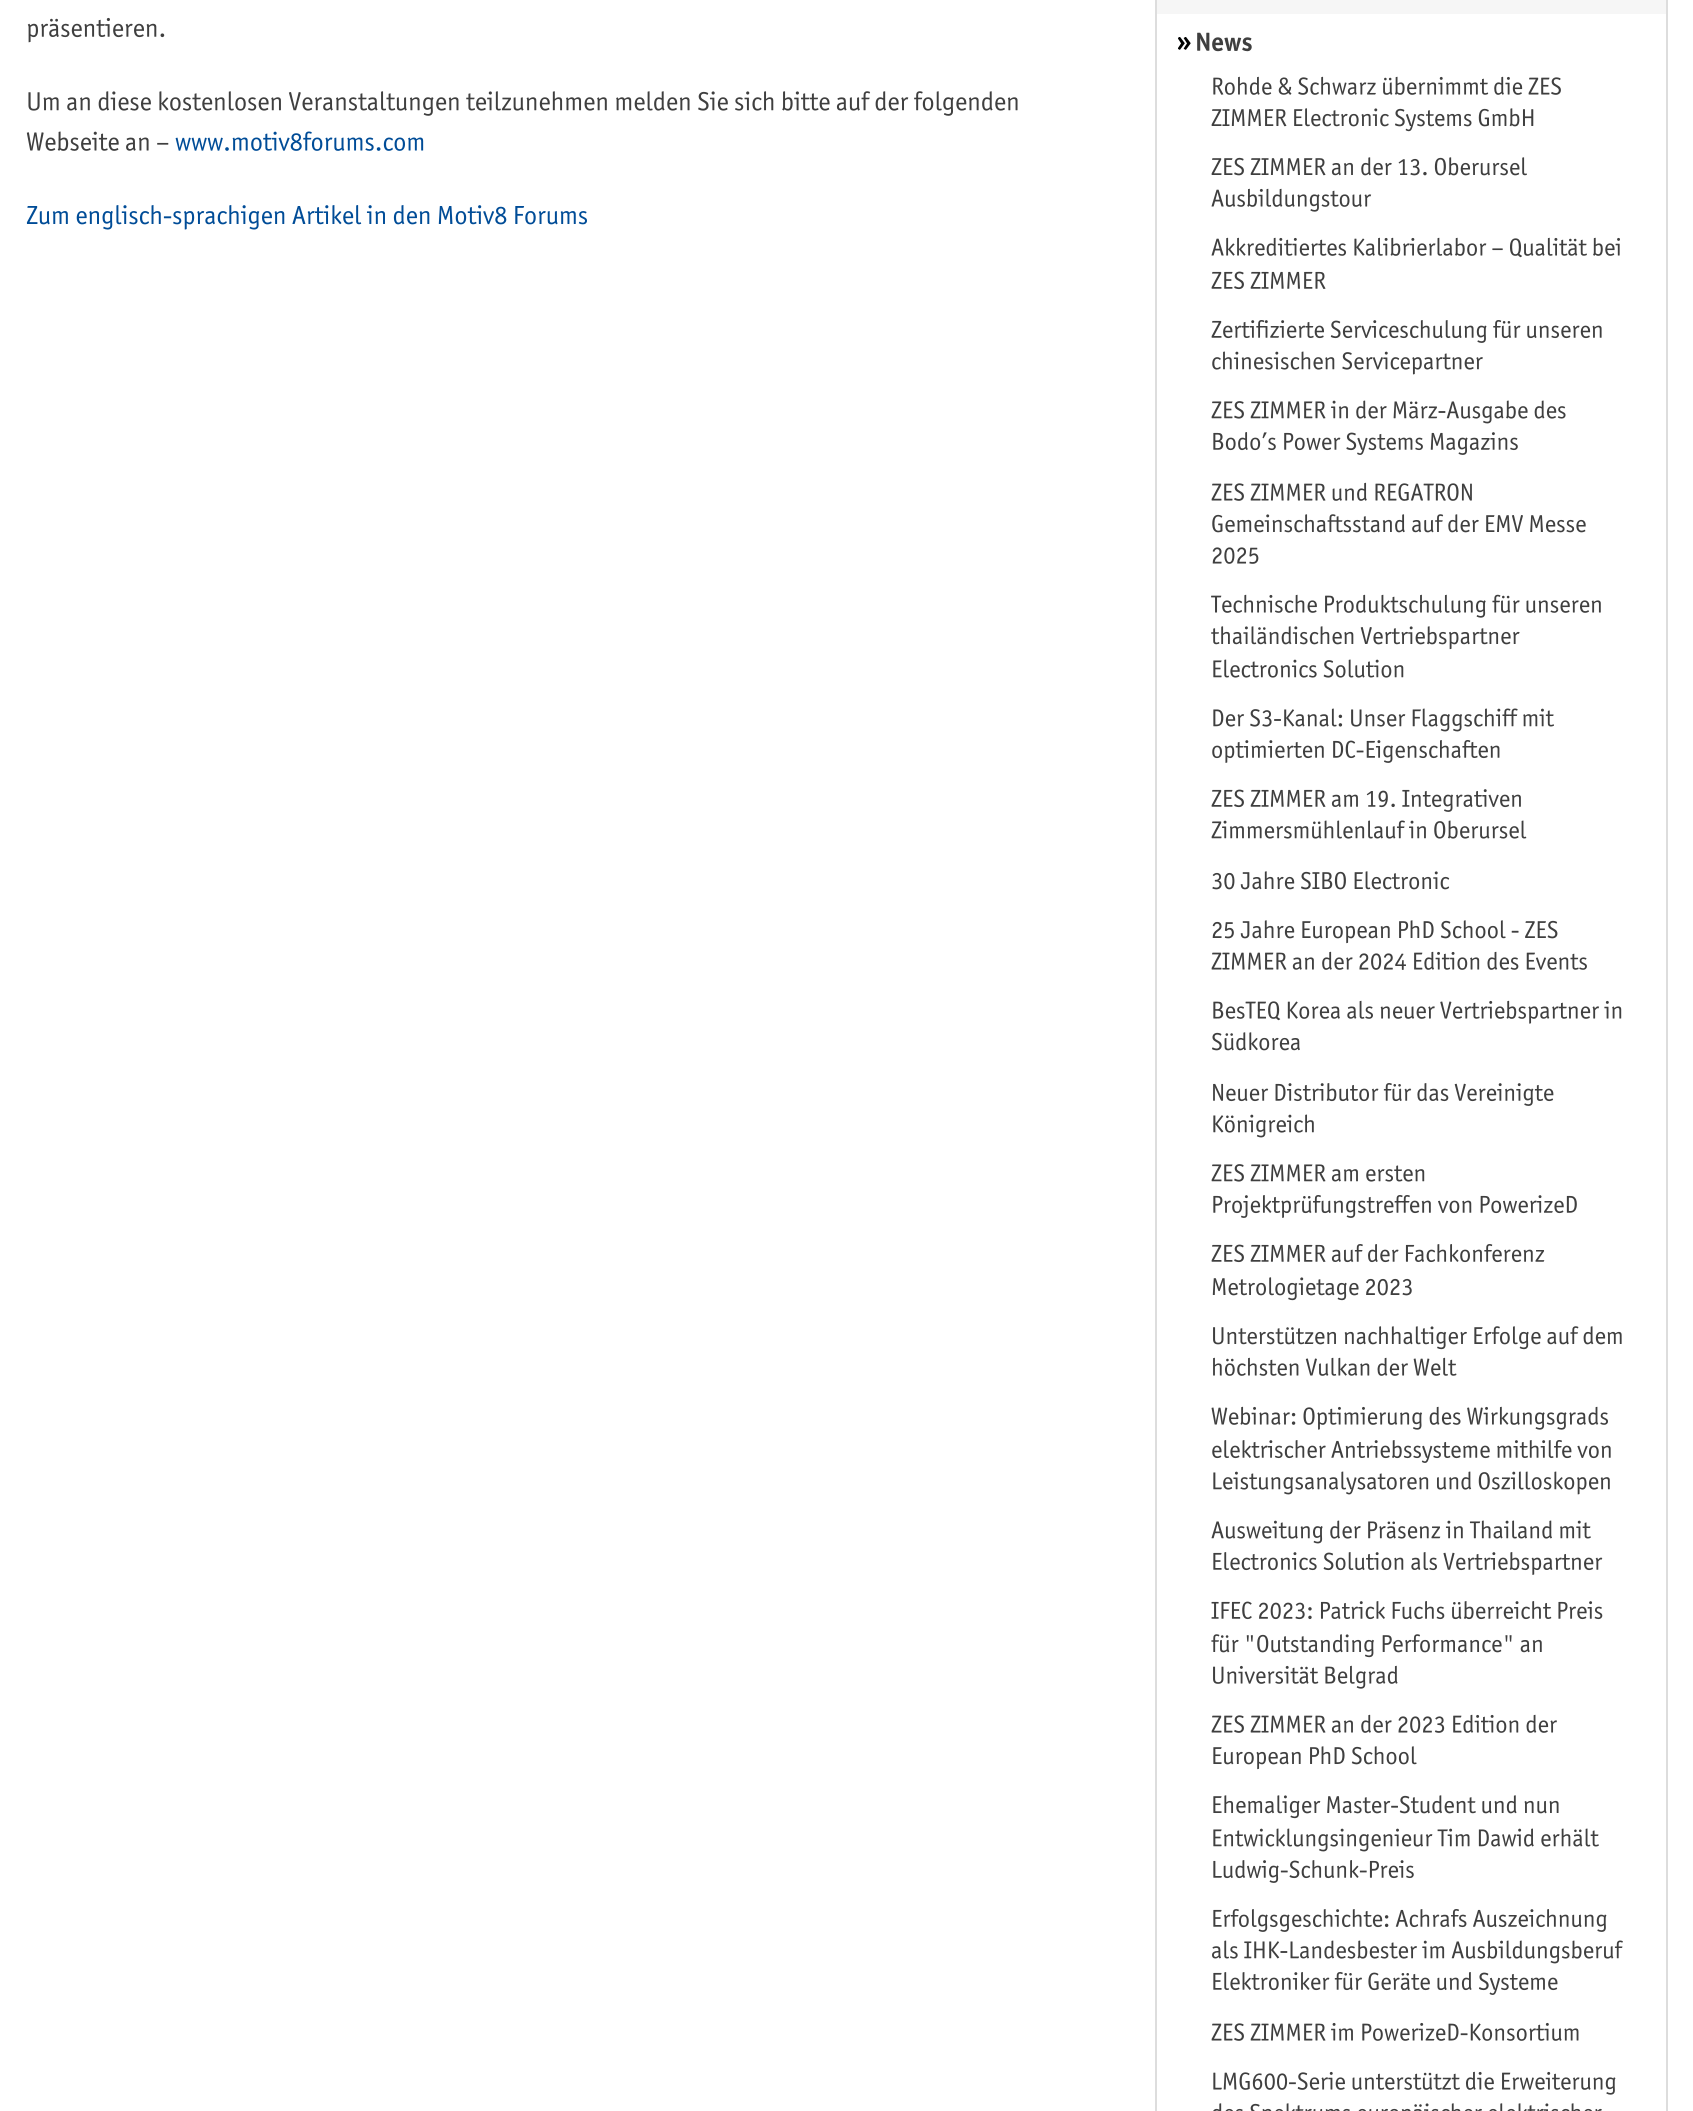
#include <cairo.h>
#include <math.h>
#include <stddef.h>

static cairo_t *ctx;

static void ink(unsigned color) {
    cairo_set_source_rgb(ctx, (color >> 16) / 255.0, (color >> 8 & 255) / 255.0, (color & 255) / 255.0);
}

static void block(double x, double y, double w, double h, unsigned color) {
    ink(color);
    cairo_rectangle(ctx, x, y, w, h);
    cairo_fill(ctx);
}

static void paste(const char *path, double x, double y, double w, double h) {
    cairo_surface_t *image = cairo_image_surface_create_from_png(path);
    cairo_save(ctx);
    cairo_set_source_surface(ctx, image, x, y);
    cairo_rectangle(ctx, x, y, w, h);
    cairo_fill(ctx);
    cairo_restore(ctx);
    cairo_surface_destroy(image);
}

int main(void) {
    cairo_surface_t *surface = cairo_image_surface_create(CAIRO_FORMAT_RGB24, 1693, 2111);
    ctx = cairo_create(surface);
    cairo_font_options_t *options = cairo_font_options_create();
    cairo_font_options_set_hint_metrics(options, CAIRO_HINT_METRICS_OFF);
    cairo_font_options_set_hint_style(options, CAIRO_HINT_STYLE_NONE);
    cairo_set_font_options(ctx, options);
    cairo_set_miter_limit(ctx, 4);
    ink(0xffffff);
    cairo_paint(ctx);
    paste("pic1.png", 27, 17, 138, 26);
    paste("pic2.png", 28, 91, 990, 25);
    paste("pic3.png", 26, 131, 143, 20);
    paste("pic4.png", 175, 131, 249, 20);
    paste("pic5.png", 26, 205, 561, 25);
    block(1157, 0, 509, 14, 0xf6f6f6);
    cairo_rectangle(ctx, 1156, -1, 511, 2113);
    ink(0xdddddd);
    cairo_stroke(ctx);
    paste("pic6.png", 1178, 37, 13, 13);
    paste("pic7.png", 1197, 32, 55, 20);
    paste("pic8.png", 1213, 76, 348, 19);
    paste("pic9.png", 1211, 108, 323, 24);
    paste("pic10.png", 1211, 157, 316, 19);
    paste("pic11.png", 1211, 188, 161, 24);
    paste("pic12.png", 1211, 237, 409, 21);
    paste("pic13.png", 1211, 271, 115, 19);
    paste("pic14.png", 1211, 320, 391, 23);
    paste("pic15.png", 1212, 351, 271, 24);
    paste("pic16.png", 1211, 400, 355, 24);
    paste("pic17.png", 1213, 432, 305, 23);
    paste("pic18.png", 1211, 482, 261, 19);
    paste("pic19.png", 1212, 514, 374, 19);
    paste("pic20.png", 1212, 547, 47, 17);
    paste("pic21.png", 1211, 594, 390, 24);
    paste("pic22.png", 1211, 626, 309, 24);
    paste("pic23.png", 1213, 659, 191, 19);
    paste("pic24.png", 1213, 708, 341, 24);
    paste("pic25.png", 1212, 740, 288, 23);
    paste("pic26.png", 1211, 789, 310, 23);
    paste("pic27.png", 1211, 820, 316, 19);
    paste("pic28.png", 1212, 871, 238, 19);
    paste("pic29.png", 1212, 920, 346, 24);
    paste("pic30.png", 1211, 951, 376, 19);
    paste("pic31.png", 1213, 1000, 409, 24);
    paste("pic32.png", 1212, 1032, 88, 19);
    paste("pic33.png", 1213, 1083, 341, 23);
    paste("pic34.png", 1213, 1114, 101, 24);
    paste("pic35.png", 1211, 1164, 214, 18);
    paste("pic36.png", 1213, 1195, 364, 23);
    paste("pic37.png", 1211, 1244, 334, 19);
    paste("pic38.png", 1212, 1277, 200, 24);
    paste("pic39.png", 1213, 1326, 409, 24);
    paste("pic40.png", 1213, 1357, 244, 19);
    paste("pic41.png", 1211, 1406, 397, 24);
    paste("pic42.png", 1212, 1440, 399, 23);
    paste("pic43.png", 1213, 1471, 397, 24);
    paste("pic44.png", 1211, 1520, 380, 24);
    paste("pic45.png", 1213, 1552, 390, 23);
    paste("pic46.png", 1211, 1601, 392, 19);
    paste("pic47.png", 1211, 1634, 331, 24);
    paste("pic48.png", 1213, 1665, 185, 24);
    paste("pic49.png", 1211, 1714, 346, 19);
    paste("pic50.png", 1213, 1746, 204, 24);
    paste("pic51.png", 1213, 1795, 346, 24);
    paste("pic52.png", 1213, 1828, 386, 24);
    paste("pic53.png", 1213, 1860, 201, 23);
    paste("pic54.png", 1213, 1909, 394, 23);
    paste("pic55.png", 1212, 1940, 411, 24);
    paste("pic56.png", 1213, 1972, 345, 23);
    paste("pic57.png", 1211, 2022, 368, 19);
    paste("pic58.png", 1213, 2071, 403, 24);
    paste("pic59.png", 1213, 2103, 389, 8);
    cairo_surface_write_to_png(surface, "screenshot.png");
    cairo_font_options_destroy(options);
    cairo_destroy(ctx);
    cairo_surface_destroy(surface);
    return 0;
}
